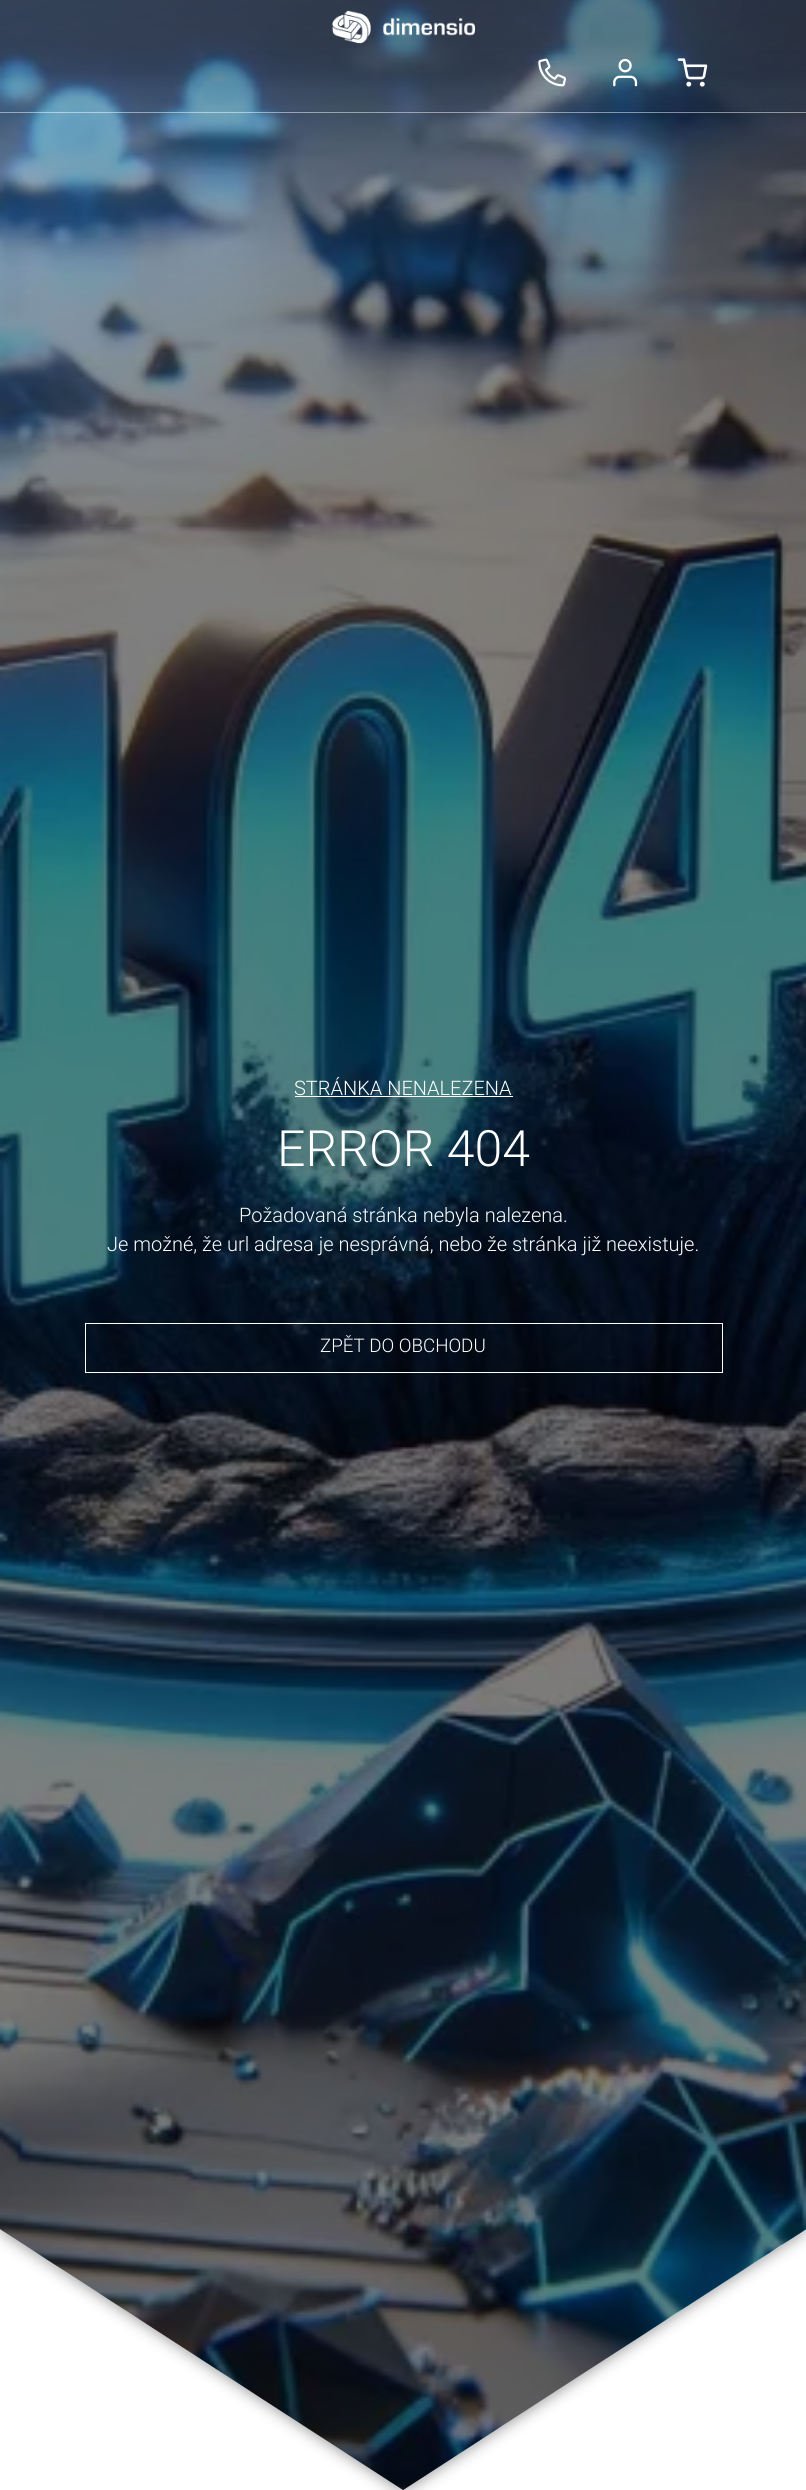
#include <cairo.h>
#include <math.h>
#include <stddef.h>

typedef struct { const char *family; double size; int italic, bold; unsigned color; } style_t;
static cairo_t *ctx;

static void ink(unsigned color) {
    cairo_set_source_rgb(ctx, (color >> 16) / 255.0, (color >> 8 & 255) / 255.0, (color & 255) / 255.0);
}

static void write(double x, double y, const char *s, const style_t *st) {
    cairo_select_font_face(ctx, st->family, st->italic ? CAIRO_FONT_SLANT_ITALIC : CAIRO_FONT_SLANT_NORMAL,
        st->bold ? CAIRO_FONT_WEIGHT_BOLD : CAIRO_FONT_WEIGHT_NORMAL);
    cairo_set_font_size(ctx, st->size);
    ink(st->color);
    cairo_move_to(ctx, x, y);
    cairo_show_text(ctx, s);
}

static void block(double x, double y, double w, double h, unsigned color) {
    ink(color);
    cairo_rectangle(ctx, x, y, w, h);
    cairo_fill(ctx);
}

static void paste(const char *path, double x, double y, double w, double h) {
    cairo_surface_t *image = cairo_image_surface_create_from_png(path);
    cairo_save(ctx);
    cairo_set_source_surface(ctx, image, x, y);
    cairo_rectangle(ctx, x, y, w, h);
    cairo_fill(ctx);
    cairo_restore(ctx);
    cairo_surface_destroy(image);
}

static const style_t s1 = {"Roboto Light", 20, 0, 0, 0xffffff};
static const style_t s2 = {"Roboto Light", 50, 0, 0, 0xffffff};
static const style_t s3 = {"Roboto Light", 18.75, 0, 0, 0xffffff};

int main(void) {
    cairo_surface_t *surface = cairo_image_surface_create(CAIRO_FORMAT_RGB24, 806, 2490);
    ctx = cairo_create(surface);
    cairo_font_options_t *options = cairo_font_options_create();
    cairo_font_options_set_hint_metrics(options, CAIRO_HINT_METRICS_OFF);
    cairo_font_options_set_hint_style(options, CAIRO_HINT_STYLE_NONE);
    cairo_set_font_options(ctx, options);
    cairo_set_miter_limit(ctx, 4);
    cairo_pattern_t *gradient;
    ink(0xffffff);
    cairo_paint(ctx);
    paste("pic5.png", 0, 0, 806, 2490);
    gradient = cairo_pattern_create_linear(-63, -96, 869, 2467);
    cairo_pattern_add_color_stop_rgba(gradient, 0, 0.063, 0.459, 0.8, 0.5);
    cairo_pattern_add_color_stop_rgba(gradient, 0.25, 0, 0, 0, 0.5);
    cairo_pattern_add_color_stop_rgba(gradient, 1, 0, 0, 0, 0.5);
    cairo_set_source(ctx, gradient);
    cairo_pattern_destroy(gradient);
    cairo_new_path(ctx);
    cairo_move_to(ctx, 0, -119);
    cairo_line_to(ctx, 0, 2229);
    cairo_line_to(ctx, 403, 2490);
    cairo_line_to(ctx, 806, 2229);
    cairo_line_to(ctx, 806, -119);
    cairo_close_path(ctx);
    cairo_fill(ctx);
    cairo_rectangle(ctx, -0.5, -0.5, 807, 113);
    cairo_set_source_rgba(ctx, 1, 1, 1, 0.48);
    cairo_set_line_width(ctx, 1);
    cairo_stroke(ctx);
    gradient = cairo_pattern_create_linear(403, 0, 403, 111);
    cairo_pattern_add_color_stop_rgba(gradient, 0.35, 0.259, 0.259, 0.259, 0.39);
    cairo_pattern_add_color_stop_rgba(gradient, 0.67, 0.259, 0.259, 0.259, 0.23);
    cairo_pattern_add_color_stop_rgba(gradient, 0.95, 0.42, 0.42, 0.42, 0.08);
    cairo_set_source(ctx, gradient);
    cairo_pattern_destroy(gradient);
    cairo_rectangle(ctx, 0, 0, 806, 111);
    cairo_fill(ctx);
    paste("pic1.png", 332, 10, 143, 34);
    paste("pic2.png", 538, 58, 28, 29);
    paste("pic3.png", 613, 58, 25, 29);
    paste("pic4.png", 677, 58, 31, 29);
    write(294, 1095, "STRÁNKA NENALEZENA", &s1);
    block(295, 1096, 218, 1, 0xffffff);
    write(277, 1166, "ERROR 404", &s2);
    write(239, 1222, "Požadovaná stránka nebyla nalezena.", &s1);
    write(107, 1251, "Je možné, že url adresa je nesprávná, nebo že stránka již neexistuje.", &s1);
    cairo_rectangle(ctx, 85.5, 1323.5, 637, 49);
    cairo_stroke(ctx);
    write(320, 1352, "ZPĚT DO OBCHODU", &s3);
    cairo_surface_write_to_png(surface, "screenshot.png");
    cairo_font_options_destroy(options);
    cairo_destroy(ctx);
    cairo_surface_destroy(surface);
    return 0;
}
